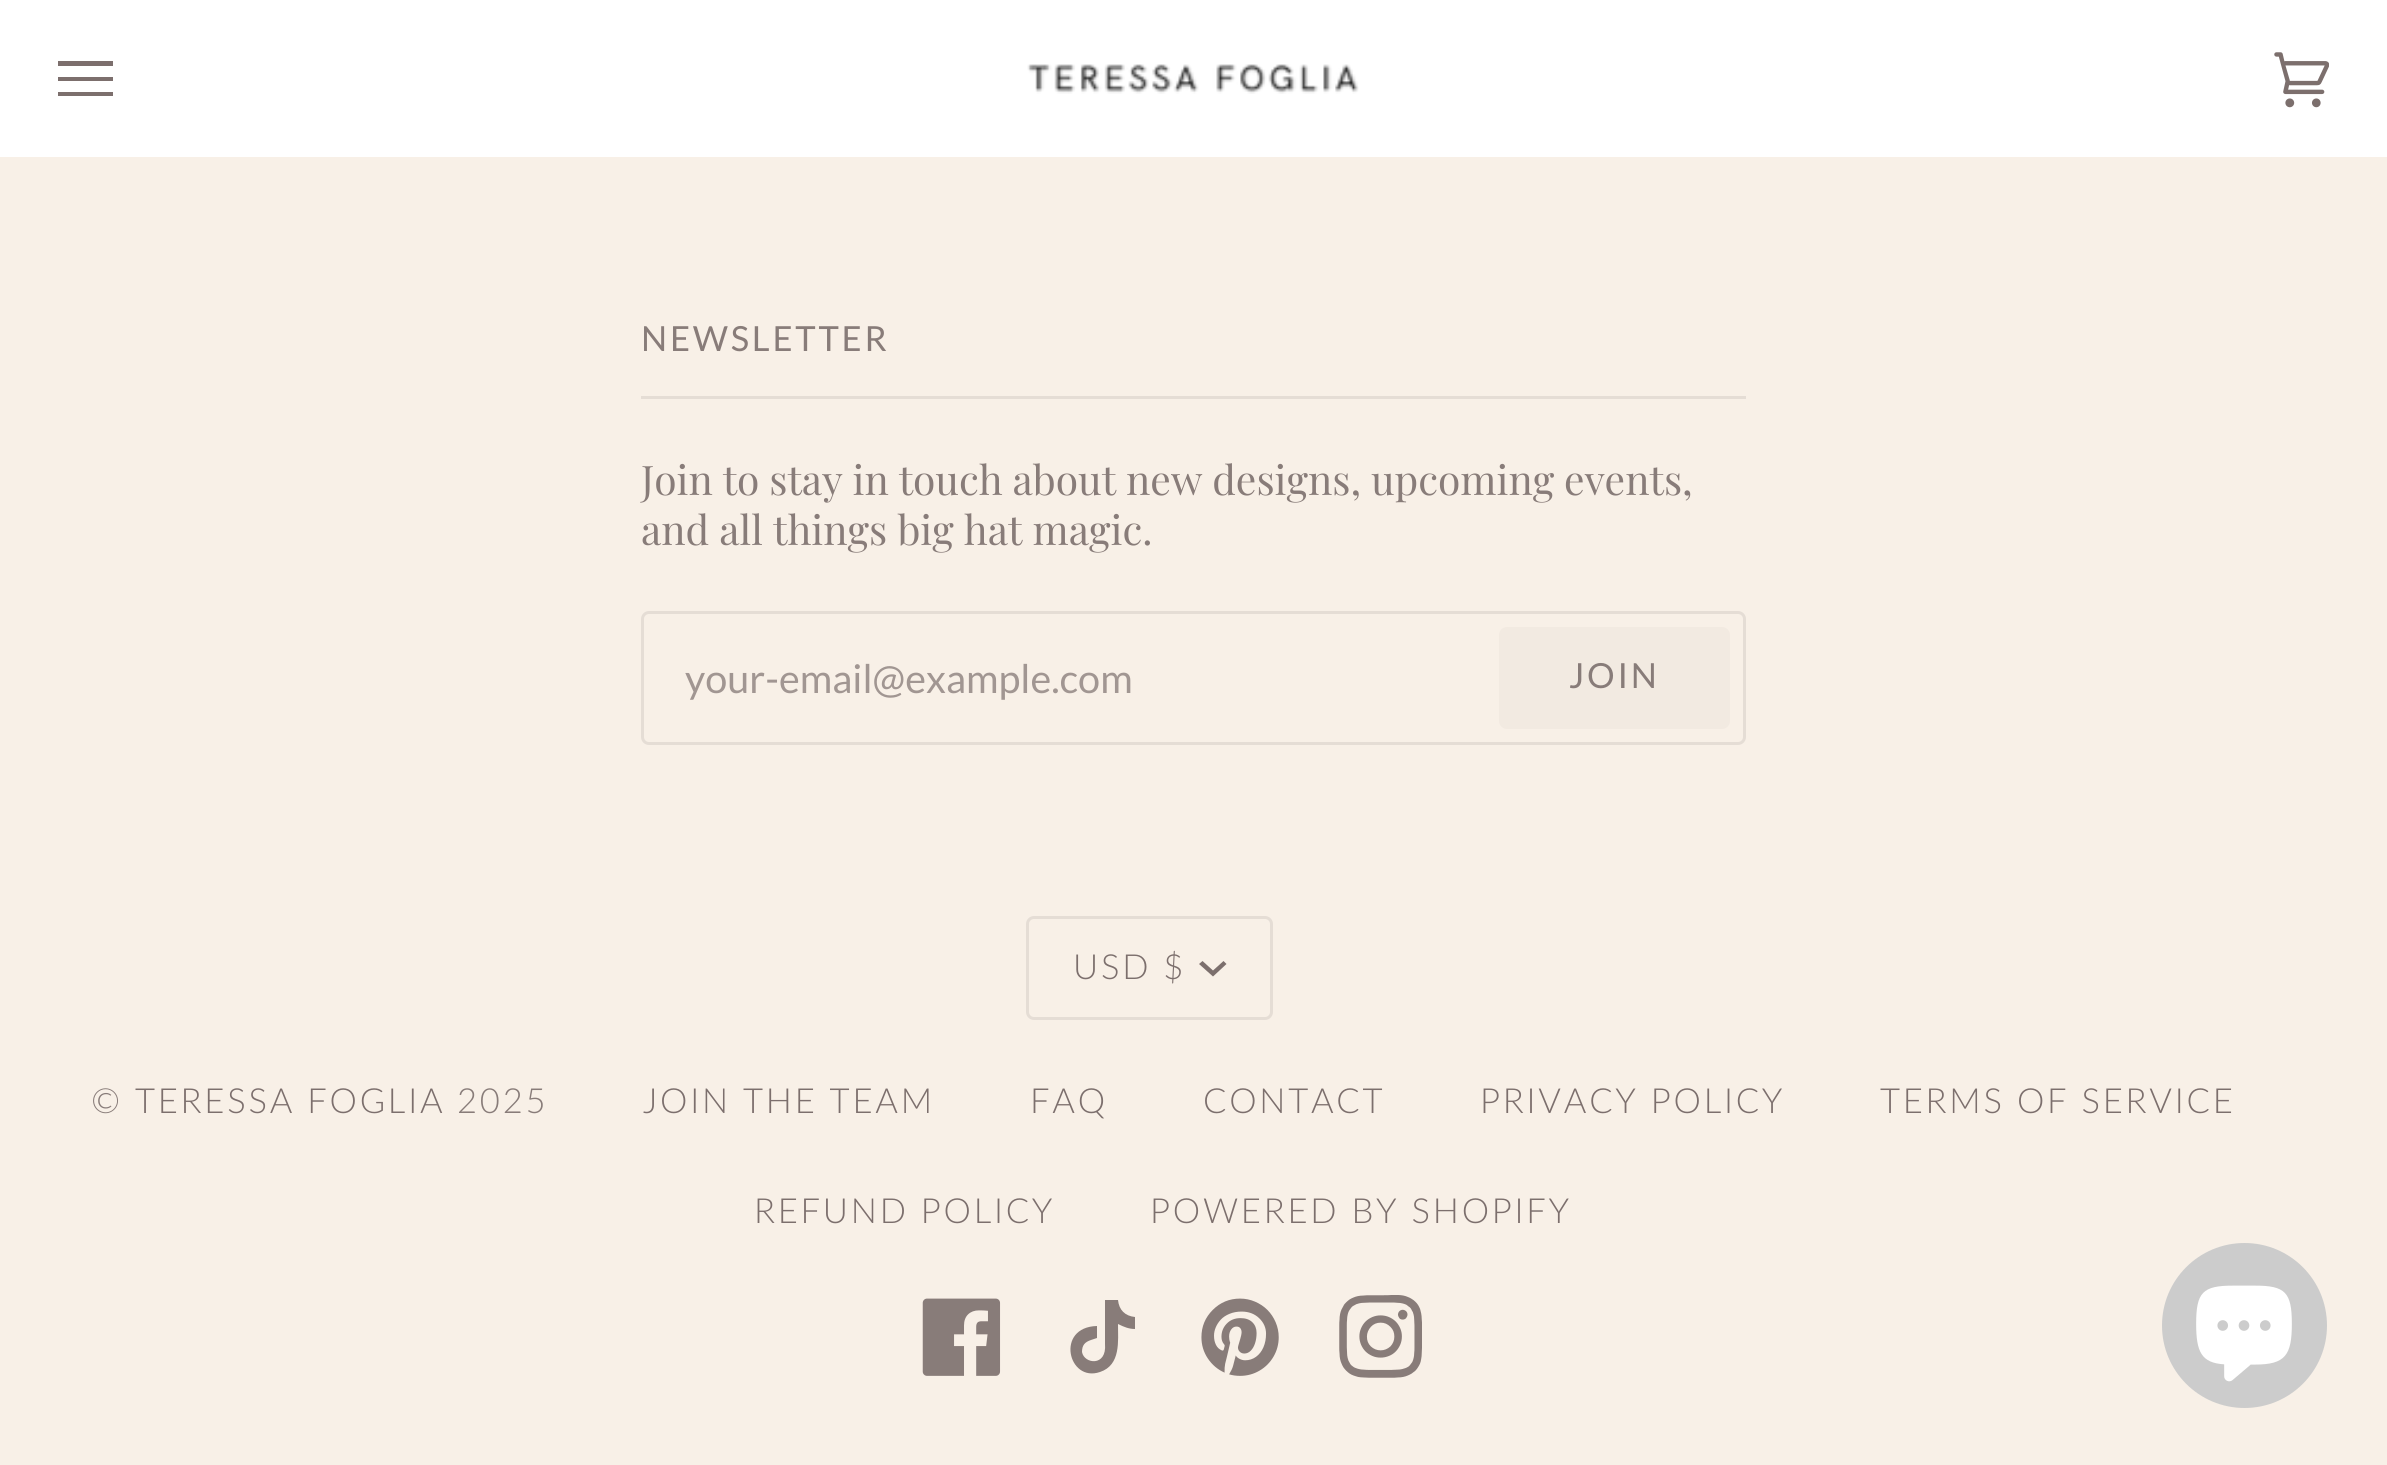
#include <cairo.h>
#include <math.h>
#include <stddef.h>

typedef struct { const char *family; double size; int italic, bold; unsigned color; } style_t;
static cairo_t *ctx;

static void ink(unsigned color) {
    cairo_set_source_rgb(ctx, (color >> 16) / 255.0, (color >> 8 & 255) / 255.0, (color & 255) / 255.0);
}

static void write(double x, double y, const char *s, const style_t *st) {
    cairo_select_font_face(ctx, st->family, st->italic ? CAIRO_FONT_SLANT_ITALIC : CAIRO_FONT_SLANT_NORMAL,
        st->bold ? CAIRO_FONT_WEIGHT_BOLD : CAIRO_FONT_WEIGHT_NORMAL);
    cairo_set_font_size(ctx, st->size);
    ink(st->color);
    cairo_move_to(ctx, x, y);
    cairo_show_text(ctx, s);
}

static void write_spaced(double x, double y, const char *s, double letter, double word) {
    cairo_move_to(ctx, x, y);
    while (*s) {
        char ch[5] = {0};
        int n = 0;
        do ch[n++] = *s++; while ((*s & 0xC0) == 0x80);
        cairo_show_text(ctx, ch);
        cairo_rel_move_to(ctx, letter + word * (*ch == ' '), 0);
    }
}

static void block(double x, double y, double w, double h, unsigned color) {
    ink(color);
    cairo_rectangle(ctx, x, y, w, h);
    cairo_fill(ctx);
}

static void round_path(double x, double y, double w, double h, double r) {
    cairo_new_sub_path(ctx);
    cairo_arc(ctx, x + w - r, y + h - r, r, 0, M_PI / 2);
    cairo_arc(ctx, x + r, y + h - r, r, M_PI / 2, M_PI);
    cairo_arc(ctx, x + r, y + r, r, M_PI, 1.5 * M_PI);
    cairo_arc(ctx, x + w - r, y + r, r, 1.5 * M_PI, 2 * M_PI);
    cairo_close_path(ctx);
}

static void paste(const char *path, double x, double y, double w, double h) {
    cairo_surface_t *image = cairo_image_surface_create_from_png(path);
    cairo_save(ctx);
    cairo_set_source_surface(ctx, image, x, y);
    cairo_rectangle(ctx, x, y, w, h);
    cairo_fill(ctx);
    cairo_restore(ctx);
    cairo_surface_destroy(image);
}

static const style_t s1 = {"Playfair Display", 40.7, 0, 0, 0x887c79};
static const style_t s2 = {"Lato", 39.6, 0, 0, 0xa19692};

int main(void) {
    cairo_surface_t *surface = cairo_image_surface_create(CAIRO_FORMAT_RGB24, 2387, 1465);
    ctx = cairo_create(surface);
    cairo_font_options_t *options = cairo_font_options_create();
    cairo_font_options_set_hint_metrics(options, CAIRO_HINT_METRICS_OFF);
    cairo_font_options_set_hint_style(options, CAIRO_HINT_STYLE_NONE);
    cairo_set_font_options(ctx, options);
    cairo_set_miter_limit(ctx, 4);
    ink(0xffffff);
    cairo_paint(ctx);
    ink(0x7c6f6d);
    cairo_new_path(ctx);
    cairo_move_to(ctx, 58, 61);
    cairo_line_to(ctx, 113, 61);
    cairo_line_to(ctx, 113, 66);
    cairo_line_to(ctx, 58, 66);
    cairo_close_path(ctx);
    cairo_move_to(ctx, 58, 77);
    cairo_line_to(ctx, 113, 77);
    cairo_line_to(ctx, 113, 81);
    cairo_line_to(ctx, 58, 81);
    cairo_close_path(ctx);
    cairo_move_to(ctx, 58, 92);
    cairo_line_to(ctx, 113, 92);
    cairo_line_to(ctx, 113, 96);
    cairo_line_to(ctx, 58, 96);
    cairo_close_path(ctx);
    cairo_fill(ctx);
    paste("pic1.png", 1027, 64, 332, 30);
    paste("pic2.png", 2274, 52, 55, 56);
    block(0, 157, 2387, 1308, 0xf8f0e7);
    block(641, 396, 1105, 3, 0xe5ddd5);
    cairo_select_font_face(ctx, "Lato", CAIRO_FONT_SLANT_NORMAL, CAIRO_FONT_WEIGHT_NORMAL);
    cairo_set_font_size(ctx, 34.6);
    ink(0x887c79);
    write_spaced(641, 351, "NEWSLETTER", 2.75, 0);
    cairo_select_font_face(ctx, "Playfair Display", CAIRO_FONT_SLANT_NORMAL, CAIRO_FONT_WEIGHT_NORMAL);
    cairo_set_font_size(ctx, 40.7);
    write_spaced(641, 495, "Join to stay in touch about new designs, upcoming events,", 0, -0.25);
    write(641, 545, "and all things big hat magic.", &s1);
    round_path(642.5, 612.5, 1102, 131, 6.5);
    ink(0xe5ddd5);
    cairo_set_line_width(ctx, 3);
    cairo_stroke(ctx);
    write(685, 693, "your-email@example.com", &s2);
    ink(0xf2eae1);
    round_path(1499, 627, 231, 102, 8);
    cairo_fill(ctx);
    cairo_set_font_size(ctx, 34.6);
    ink(0x887c79);
    write_spaced(1569, 688, "JOIN", 2.75, 0);
    round_path(1027.5, 917.5, 244, 101, 6.5);
    ink(0xe5ddd5);
    cairo_stroke(ctx);
    cairo_select_font_face(ctx, "Lato Light", CAIRO_FONT_SLANT_NORMAL, CAIRO_FONT_WEIGHT_NORMAL);
    ink(0x7c6f6d);
    write_spaced(1073, 979, "USD $", 2.75, 0);
    cairo_set_fill_rule(ctx, CAIRO_FILL_RULE_EVEN_ODD);
    cairo_new_path(ctx);
    cairo_move_to(ctx, 1199, 964);
    cairo_line_to(ctx, 1202.5, 961);
    cairo_line_to(ctx, 1213, 970.5);
    cairo_line_to(ctx, 1223.5, 961);
    cairo_line_to(ctx, 1226.5, 964);
    cairo_line_to(ctx, 1213, 976.5);
    cairo_close_path(ctx);
    cairo_fill(ctx);
    ink(0x887c79);
    write_spaced(91, 1113, "©", 2.75, 0);
    ink(0x7c6f6d);
    write_spaced(135, 1113, "TERESSA FOGLIA", 2.75, 0);
    ink(0x887c79);
    write_spaced(457, 1113, "2025", 2.75, 0);
    ink(0x7c6f6d);
    write_spaced(643, 1113, "JOIN THE TEAM", 2.75, 0);
    write_spaced(1030, 1113, "FAQ", 2.75, 0);
    write_spaced(1203, 1113, "CONTACT", 2.75, 0);
    write_spaced(1480, 1113, "PRIVACY POLICY", 2.75, 0);
    write_spaced(1880, 1113, "TERMS OF SERVICE", 2.75, 0);
    write_spaced(754, 1223, "REFUND POLICY", 2.75, 0);
    write_spaced(1150, 1223, "POWERED BY SHOPIFY", 2.75, 0);
    paste("pic3.png", 922, 1298, 79, 78);
    ink(0x887c79);
    cairo_new_path(ctx);
    cairo_move_to(ctx, 1118, 1300);
    cairo_curve_to(ctx, 1119, 1310, 1125, 1316, 1135, 1317);
    cairo_line_to(ctx, 1135, 1329);
    cairo_curve_to(ctx, 1129, 1329, 1124, 1327, 1118, 1324);
    cairo_curve_to(ctx, 1118, 1341, 1121, 1365, 1100, 1372);
    cairo_curve_to(ctx, 1068, 1383, 1055, 1327, 1097, 1326);
    cairo_line_to(ctx, 1097, 1338);
    cairo_line_to(ctx, 1091, 1340);
    cairo_curve_to(ctx, 1085, 1342, 1082, 1345, 1082, 1352);
    cairo_curve_to(ctx, 1084, 1364, 1107, 1367, 1105, 1344);
    cairo_line_to(ctx, 1105, 1300);
    cairo_close_path(ctx);
    cairo_fill(ctx);
    paste("pic4.png", 1201, 1298, 78, 78);
    paste("pic5.png", 1339, 1295, 83, 83);
    ink(0xcccccc);
    cairo_arc(ctx, 2244.5, 1325.5, 82.5, 0, 2 * M_PI);
    cairo_fill(ctx);
    paste("pic6.png", 2196, 1285, 96, 97);
    cairo_surface_write_to_png(surface, "screenshot.png");
    cairo_font_options_destroy(options);
    cairo_destroy(ctx);
    cairo_surface_destroy(surface);
    return 0;
}
